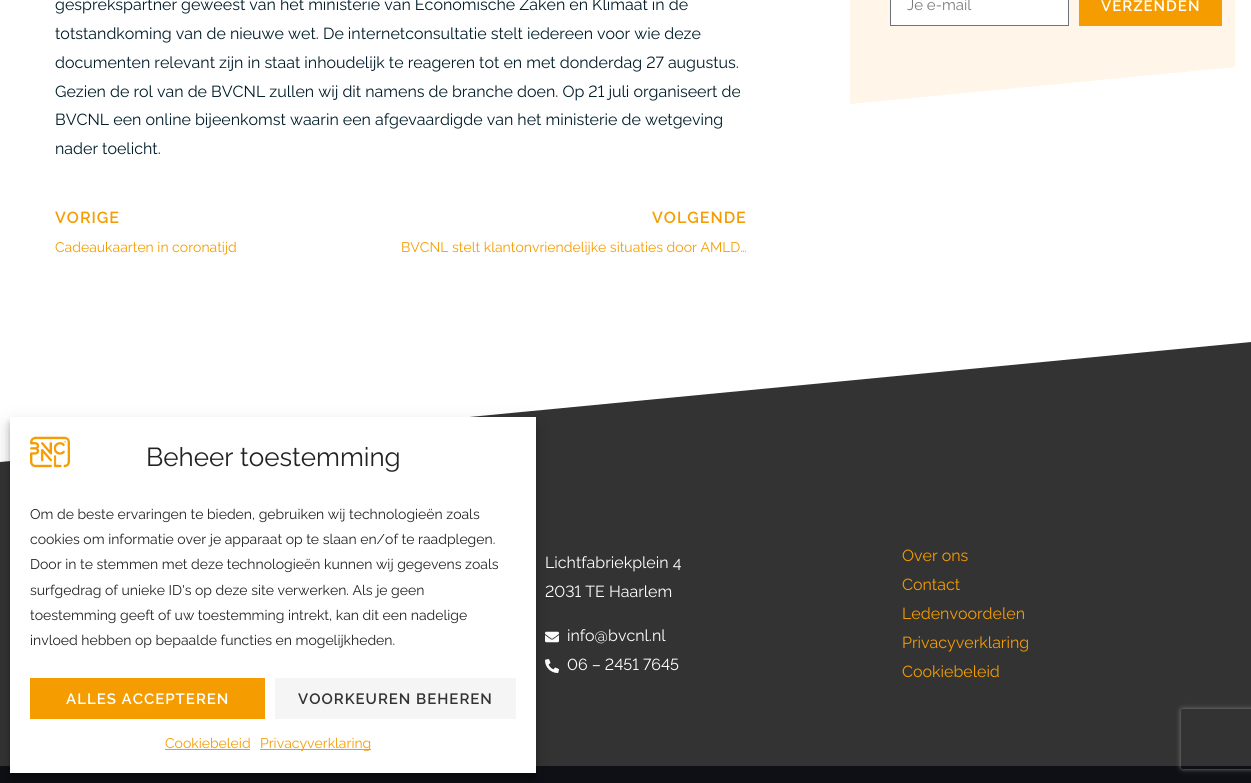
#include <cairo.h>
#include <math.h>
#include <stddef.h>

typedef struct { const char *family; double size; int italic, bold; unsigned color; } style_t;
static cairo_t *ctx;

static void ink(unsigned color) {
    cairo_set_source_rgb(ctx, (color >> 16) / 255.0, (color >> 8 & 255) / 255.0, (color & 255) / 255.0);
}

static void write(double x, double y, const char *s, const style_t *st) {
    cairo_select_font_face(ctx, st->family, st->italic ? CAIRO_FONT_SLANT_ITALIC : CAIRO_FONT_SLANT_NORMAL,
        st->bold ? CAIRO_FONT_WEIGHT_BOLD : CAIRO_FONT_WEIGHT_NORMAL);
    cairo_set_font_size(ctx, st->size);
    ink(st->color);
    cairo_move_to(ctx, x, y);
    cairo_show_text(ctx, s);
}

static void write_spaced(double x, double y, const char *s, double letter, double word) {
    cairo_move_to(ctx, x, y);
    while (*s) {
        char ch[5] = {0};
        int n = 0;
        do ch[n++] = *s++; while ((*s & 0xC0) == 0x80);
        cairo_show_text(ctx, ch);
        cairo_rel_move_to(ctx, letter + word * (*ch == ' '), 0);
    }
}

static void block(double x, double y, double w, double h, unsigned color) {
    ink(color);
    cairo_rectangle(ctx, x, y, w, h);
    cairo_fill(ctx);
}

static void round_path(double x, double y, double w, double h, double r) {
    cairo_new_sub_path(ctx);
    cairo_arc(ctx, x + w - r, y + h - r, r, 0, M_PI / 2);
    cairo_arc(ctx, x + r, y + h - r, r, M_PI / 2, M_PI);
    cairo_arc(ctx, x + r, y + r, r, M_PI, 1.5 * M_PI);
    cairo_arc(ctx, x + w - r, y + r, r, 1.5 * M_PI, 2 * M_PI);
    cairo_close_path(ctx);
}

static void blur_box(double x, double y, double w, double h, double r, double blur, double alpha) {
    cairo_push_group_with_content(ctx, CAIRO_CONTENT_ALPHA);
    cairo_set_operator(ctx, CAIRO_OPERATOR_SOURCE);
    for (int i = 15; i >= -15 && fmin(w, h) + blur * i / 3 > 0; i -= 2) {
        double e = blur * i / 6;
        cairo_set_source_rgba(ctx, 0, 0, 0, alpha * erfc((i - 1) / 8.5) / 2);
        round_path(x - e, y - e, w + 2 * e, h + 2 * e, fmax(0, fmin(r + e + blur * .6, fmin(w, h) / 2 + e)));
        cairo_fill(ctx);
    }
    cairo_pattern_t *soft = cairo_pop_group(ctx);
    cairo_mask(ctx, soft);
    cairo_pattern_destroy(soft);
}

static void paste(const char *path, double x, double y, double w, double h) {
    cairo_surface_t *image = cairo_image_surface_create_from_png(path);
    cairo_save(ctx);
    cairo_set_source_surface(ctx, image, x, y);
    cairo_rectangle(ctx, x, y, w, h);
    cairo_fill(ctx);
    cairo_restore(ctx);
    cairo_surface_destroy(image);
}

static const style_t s1 = {"Raleway", 16, 0, 0, 0x001c28};
static const style_t s2 = {"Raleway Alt", 16, 0, 0, 0x001c28};
static const style_t s3 = {"Raleway", 14, 0, 0, 0xf59c00};
static const style_t s4 = {"Raleway", 15, 0, 0, 0x797a7c};
static const style_t s5 = {"Raleway", 26, 0, 0, 0x222222};
static const style_t s6 = {"Raleway", 14, 0, 0, 0x222222};
static const style_t s7 = {"Raleway", 16, 0, 0, 0xffffff};
static const style_t s8 = {"Raleway Alt", 16, 0, 0, 0xffffff};
static const style_t s9 = {"Raleway", 16, 0, 0, 0xf59c00};

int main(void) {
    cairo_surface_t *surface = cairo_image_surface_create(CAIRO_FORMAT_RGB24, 1251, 783);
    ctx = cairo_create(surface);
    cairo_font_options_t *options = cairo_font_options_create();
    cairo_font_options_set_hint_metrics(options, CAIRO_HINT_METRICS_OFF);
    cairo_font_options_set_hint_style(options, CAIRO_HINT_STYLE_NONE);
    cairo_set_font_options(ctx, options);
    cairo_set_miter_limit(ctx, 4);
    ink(0xffffff);
    cairo_paint(ctx);
    write(55, 10, "gesprekspartner geweest van het ministerie van Economische Zaken en Klimaat in de", &s1);
    write(55, 39, "totstandkoming van de nieuwe wet. De internetconsultatie stelt iedereen voor wie deze", &s1);
    write(55, 68, "documenten relevant zijn in staat inhoudelijk te reageren tot en met donderdag 27 augustus.", &s2);
    write(55, 97, "Gezien de rol van de BVCNL zullen wij dit namens de branche doen. Op 21 juli organiseert de", &s2);
    write(55, 125, "BVCNL een online bijeenkomst waarin een afgevaardigde van het ministerie de wetgeving", &s1);
    write(55, 154, "nader toelicht.", &s1);
    cairo_select_font_face(ctx, "Raleway SemiBold", CAIRO_FONT_SLANT_NORMAL, CAIRO_FONT_WEIGHT_NORMAL);
    ink(0xf59c00);
    write_spaced(55, 223, "VORIGE", 1, 0);
    write(55, 252, "Cadeaukaarten in coronatijd", &s3);
    cairo_select_font_face(ctx, "Raleway SemiBold", CAIRO_FONT_SLANT_NORMAL, CAIRO_FONT_WEIGHT_NORMAL);
    cairo_set_font_size(ctx, 16);
    write_spaced(652, 223, "VOLGENDE", 1, 0);
    write(401, 252, "BVCNL stelt klantonvriendelijke situaties door AMLD…", &s3);
    block(850, 0, 385, 66, 0xfff5e9);
    ink(0xffffff);
    cairo_rectangle(ctx, 890.5, -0.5, 178, 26);
    cairo_fill_preserve(ctx);
    ink(0x69727d);
    cairo_set_line_width(ctx, 1);
    cairo_stroke(ctx);
    write(907, 10, "Je e-mail", &s4);
    block(1079, 0, 143, 26, 0xf59c00);
    cairo_select_font_face(ctx, "Raleway SemiBold", CAIRO_FONT_SLANT_NORMAL, CAIRO_FONT_WEIGHT_NORMAL);
    ink(0xffffff);
    write_spaced(1101, 11, "VERZENDEN", 1, 0);
    block(0, 466, 1251, 300, 0x333333);
    block(0, 766, 1251, 17, 0x0e1015);
    cairo_save(ctx);
    cairo_set_fill_rule(ctx, CAIRO_FILL_RULE_EVEN_ODD);
    cairo_new_path(ctx);
    cairo_move_to(ctx, 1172, 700);
    cairo_line_to(ctx, 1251, 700);
    cairo_line_to(ctx, 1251, 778);
    cairo_line_to(ctx, 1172, 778);
    cairo_close_path(ctx);
    cairo_move_to(ctx, 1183, 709);
    cairo_line_to(ctx, 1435, 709);
    cairo_curve_to(ctx, 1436, 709, 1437, 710, 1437, 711);
    cairo_line_to(ctx, 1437, 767);
    cairo_curve_to(ctx, 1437, 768, 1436, 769, 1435, 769);
    cairo_line_to(ctx, 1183, 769);
    cairo_curve_to(ctx, 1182, 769, 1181, 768, 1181, 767);
    cairo_line_to(ctx, 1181, 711);
    cairo_curve_to(ctx, 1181, 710, 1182, 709, 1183, 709);
    cairo_close_path(ctx);
    cairo_clip(ctx);
    ink(0x808080);
    blur_box(1181, 709, 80, 60, 2, 2.5, 1);
    cairo_restore(ctx);
    ink(0xfff5e9);
    cairo_new_path(ctx);
    cairo_move_to(ctx, 1235, 67);
    cairo_line_to(ctx, 1235, 66);
    cairo_line_to(ctx, 850, 66);
    cairo_line_to(ctx, 850, 104);
    cairo_close_path(ctx);
    cairo_fill(ctx);
    ink(0x333333);
    cairo_new_path(ctx);
    cairo_move_to(ctx, 0, 462);
    cairo_line_to(ctx, 0, 466);
    cairo_line_to(ctx, 1251, 466);
    cairo_line_to(ctx, 1251, 342);
    cairo_close_path(ctx);
    cairo_fill(ctx);
    paste("pic2.png", 545, 631, 14, 12);
    paste("pic3.png", 545, 659, 14, 14);
    ink(0x000000);
    blur_box(10, 423, 526, 356, 0, 3, 0.23);
    blur_box(10, 427, 526, 356, 0, 10, 0.19);
    block(10, 417, 526, 356, 0xffffff);
    paste("pic1.png", 30, 436, 40, 32);
    write(146, 466, "Beheer toestemming", &s5);
    write(30, 519, "Om de beste ervaringen te bieden, gebruiken wij technologieën zoals", &s6);
    write(30, 544, "cookies om informatie over je apparaat op te slaan en/of te raadplegen.", &s6);
    write(30, 569, "Door in te stemmen met deze technologieën kunnen wij gegevens zoals", &s6);
    write(30, 595, "surfgedrag of unieke ID's op deze site verwerken. Als je geen", &s6);
    write(30, 620, "toestemming geeft of uw toestemming intrekt, kan dit een nadelige", &s6);
    write(30, 645, "invloed hebben op bepaalde functies en mogelijkheden.", &s6);
    block(30, 678, 235, 41, 0xf59c00);
    cairo_select_font_face(ctx, "Raleway SemiBold", CAIRO_FONT_SLANT_NORMAL, CAIRO_FONT_WEIGHT_NORMAL);
    cairo_set_font_size(ctx, 15);
    ink(0xffffff);
    write_spaced(66, 704, "ALLES ACCEPTEREN", 1, 0);
    block(275, 678, 241, 41, 0xf5f5f5);
    ink(0x333333);
    write_spaced(298, 704, "VOORKEUREN BEHEREN", 1, 0);
    write(165, 748, "Cookiebeleid", &s3);
    block(165, 749, 85, 1, 0xf59c00);
    block(260, 749, 111, 1, 0xf59c00);
    write(260, 748, "Privacyverklaring", &s3);
    write(545, 568, "Lichtfabriekplein 4", &s7);
    write(545, 597, "2031 TE Haarlem", &s8);
    write(567, 641, "info@bvcnl.nl", &s7);
    write(567, 670, "06 – 2451 7645", &s8);
    write(902, 561, "Over ons", &s9);
    write(902, 590, "Contact", &s9);
    write(902, 619, "Ledenvoordelen", &s9);
    write(902, 648, "Privacyverklaring", &s9);
    write(902, 677, "Cookiebeleid", &s9);
    cairo_surface_write_to_png(surface, "screenshot.png");
    cairo_font_options_destroy(options);
    cairo_destroy(ctx);
    cairo_surface_destroy(surface);
    return 0;
}
